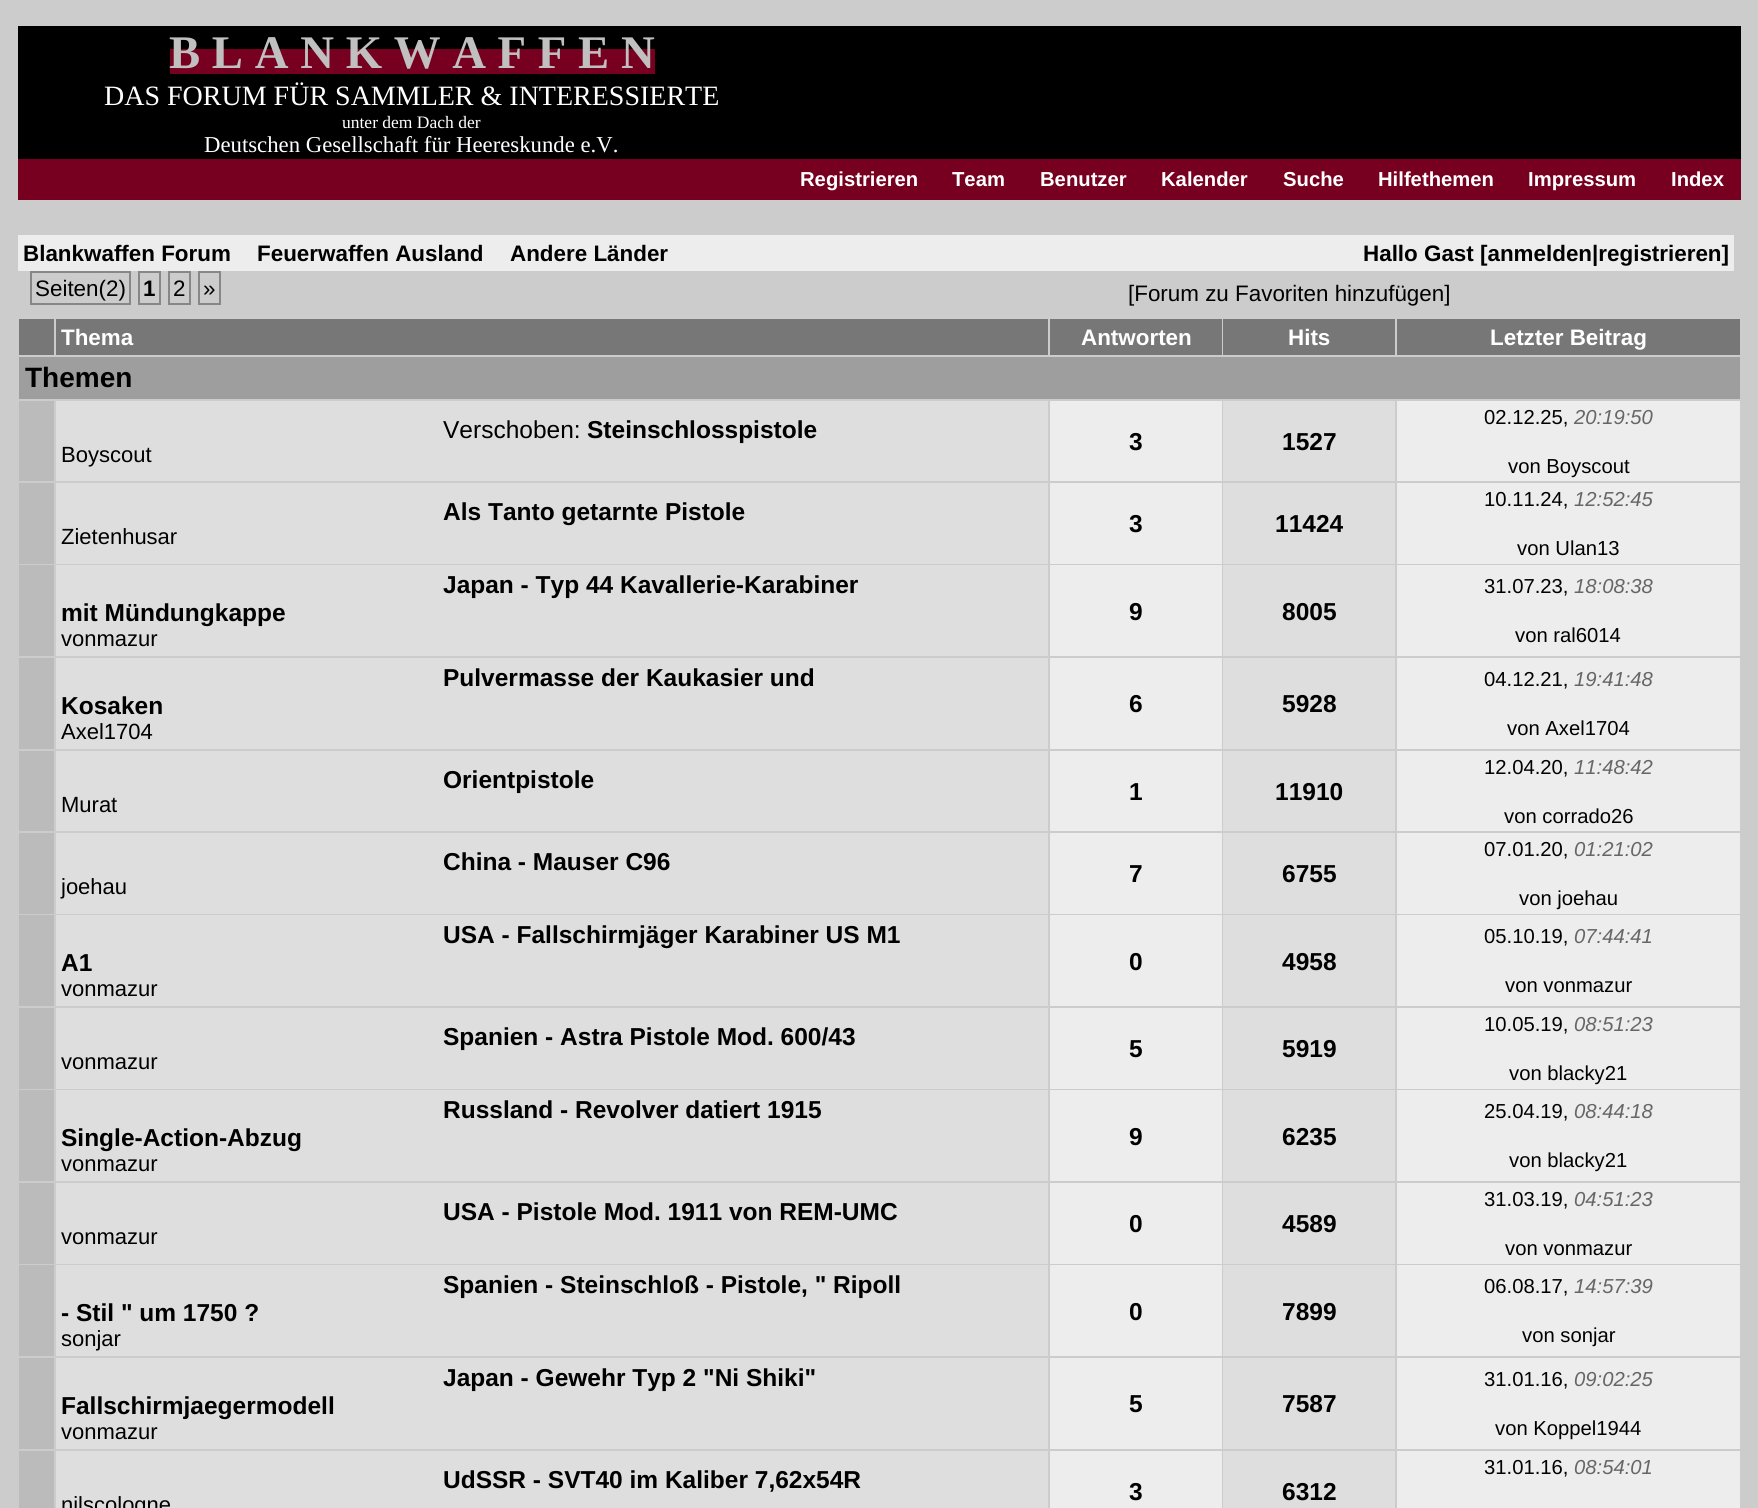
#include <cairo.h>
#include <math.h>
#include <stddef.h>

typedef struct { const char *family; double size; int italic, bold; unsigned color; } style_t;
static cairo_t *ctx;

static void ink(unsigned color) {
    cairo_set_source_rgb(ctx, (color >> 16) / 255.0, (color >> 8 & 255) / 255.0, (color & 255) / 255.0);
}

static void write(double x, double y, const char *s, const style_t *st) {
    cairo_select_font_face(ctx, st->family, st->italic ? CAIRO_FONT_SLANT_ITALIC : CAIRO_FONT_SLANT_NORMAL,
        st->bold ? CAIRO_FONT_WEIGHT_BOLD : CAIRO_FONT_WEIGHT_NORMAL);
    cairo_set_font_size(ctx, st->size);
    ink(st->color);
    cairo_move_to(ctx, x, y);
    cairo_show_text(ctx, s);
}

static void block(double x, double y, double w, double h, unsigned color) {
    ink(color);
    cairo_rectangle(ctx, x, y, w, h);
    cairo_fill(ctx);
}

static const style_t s1 = {"Liberation Serif", 46.75, 0, 1, 0xc0c0c0};
static const style_t s2 = {"Liberation Serif", 28, 0, 0, 0xffffff};
static const style_t s3 = {"Liberation Serif", 17.5, 0, 0, 0xffffff};
static const style_t s4 = {"Liberation Serif", 22.75, 0, 0, 0xffffff};
static const style_t s5 = {"Liberation Sans", 20.25, 0, 1, 0xffffff};
static const style_t s6 = {"Liberation Sans", 22.4, 0, 1, 0x000000};
static const style_t s7 = {"Liberation Sans", 22.4, 0, 0, 0x000000};
static const style_t s8 = {"Liberation Sans", 22.4, 0, 1, 0xffffff};
static const style_t s9 = {"Liberation Sans", 28, 0, 1, 0x000000};
static const style_t s10 = {"Liberation Sans", 24.5, 0, 0, 0x000000};
static const style_t s11 = {"Liberation Sans", 24.5, 0, 1, 0x000000};
static const style_t s12 = {"Liberation Sans", 22, 0, 0, 0x000000};
static const style_t s13 = {"Liberation Sans", 20.25, 0, 0, 0x000000};
static const style_t s14 = {"Liberation Sans", 20.25, 1, 0, 0x666666};

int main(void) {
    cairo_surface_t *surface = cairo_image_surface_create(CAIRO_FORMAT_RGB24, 1758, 1508);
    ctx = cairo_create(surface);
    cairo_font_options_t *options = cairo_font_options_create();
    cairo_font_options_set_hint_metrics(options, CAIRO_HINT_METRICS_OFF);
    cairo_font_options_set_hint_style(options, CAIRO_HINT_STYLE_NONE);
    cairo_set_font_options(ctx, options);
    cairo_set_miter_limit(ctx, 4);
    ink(0xcccccc);
    cairo_paint(ctx);
    block(18, 26, 1723, 133, 0x000000);
    block(170, 49, 485, 25, 0x770020);
    write(169, 68, "B L A N K W A F F E N", &s1);
    write(104, 105, "DAS FORUM FÜR SAMMLER & INTERESSIERTE", &s2);
    write(342, 128, "unter dem Dach der", &s3);
    write(204, 152, "Deutschen Gesellschaft für Heereskunde e.V.", &s4);
    block(18, 159, 1723, 41, 0x770020);
    write(800, 186, "Registrieren", &s5);
    write(952, 186, "Team", &s5);
    write(1040, 186, "Benutzer", &s5);
    write(1161, 186, "Kalender", &s5);
    write(1283, 186, "Suche", &s5);
    write(1378, 186, "Hilfethemen", &s5);
    write(1528, 186, "Impressum", &s5);
    write(1671, 186, "Index", &s5);
    block(18, 235, 1716, 36, 0xededed);
    write(23, 261, "Blankwaffen Forum", &s6);
    write(257, 261, "Feuerwaffen Ausland", &s6);
    write(510, 261, "Andere Länder", &s6);
    write(1363, 261, "Hallo Gast [anmelden|registrieren]", &s6);
    cairo_rectangle(ctx, 31, 272, 99, 32);
    ink(0x878787);
    cairo_stroke(ctx);
    write(35, 296, "Seiten(2)", &s7);
    cairo_rectangle(ctx, 139, 272, 21, 32);
    ink(0x878787);
    cairo_stroke(ctx);
    write(143, 296, "1", &s6);
    cairo_rectangle(ctx, 169, 272, 21, 32);
    ink(0x878787);
    cairo_stroke(ctx);
    write(173, 296, "2", &s7);
    cairo_rectangle(ctx, 199, 272, 21, 32);
    ink(0x878787);
    cairo_stroke(ctx);
    write(203, 296, "»", &s7);
    write(1128, 301, "[Forum zu Favoriten hinzufügen]", &s7);
    block(19, 319, 35, 36, 0x777777);
    block(56, 319, 992, 36, 0x777777);
    write(61, 345, "Thema", &s8);
    block(1050, 319, 172, 36, 0x777777);
    write(1081, 345, "Antworten", &s8);
    block(1223, 319, 172, 36, 0x777777);
    write(1288, 345, "Hits", &s8);
    block(1397, 319, 343, 36, 0x777777);
    write(1490, 345, "Letzter Beitrag", &s8);
    block(19, 357, 1721, 42, 0x9e9e9e);
    write(25, 387, "Themen", &s9);
    block(19, 401, 35, 80, 0xbbbbbb);
    block(56, 401, 992, 80, 0xdedede);
    write(443, 438, "Verschoben:", &s10);
    write(587, 438, "Steinschlosspistole", &s11);
    write(61, 462, "Boyscout", &s12);
    block(1050, 401, 172, 80, 0xededed);
    write(1129, 450, "3", &s11);
    block(1223, 401, 172, 80, 0xdedede);
    write(1282, 450, "1527", &s11);
    block(1397, 401, 343, 80, 0xededed);
    write(1484, 424, "02.12.25,", &s13);
    write(1574, 424, "20:19:50", &s14);
    write(1508, 473, "von Boyscout", &s13);
    block(19, 483, 35, 81, 0xbbbbbb);
    block(56, 483, 992, 81, 0xdedede);
    write(443, 520, "Als Tanto getarnte Pistole", &s11);
    write(61, 544, "Zietenhusar", &s12);
    block(1050, 483, 172, 81, 0xededed);
    write(1129, 532, "3", &s11);
    block(1223, 483, 172, 81, 0xdedede);
    write(1275, 532, "11424", &s11);
    block(1397, 483, 343, 81, 0xededed);
    write(1484, 506, "10.11.24,", &s13);
    write(1574, 506, "12:52:45", &s14);
    write(1517, 555, "von Ulan13", &s13);
    block(19, 565, 35, 91, 0xbbbbbb);
    block(56, 565, 992, 91, 0xdedede);
    write(443, 593, "Japan - Typ 44 Kavallerie-Karabiner", &s11);
    write(61, 621, "mit Mündungkappe", &s11);
    write(61, 646, "vonmazur", &s12);
    block(1050, 565, 172, 91, 0xededed);
    write(1129, 620, "9", &s11);
    block(1223, 565, 172, 91, 0xdedede);
    write(1282, 620, "8005", &s11);
    block(1397, 565, 343, 91, 0xededed);
    write(1484, 593, "31.07.23,", &s13);
    write(1574, 593, "18:08:38", &s14);
    write(1515, 642, "von ral6014", &s13);
    block(19, 658, 35, 91, 0xbbbbbb);
    block(56, 658, 992, 91, 0xdedede);
    write(443, 686, "Pulvermasse der Kaukasier und", &s11);
    write(61, 714, "Kosaken", &s11);
    write(61, 739, "Axel1704", &s12);
    block(1050, 658, 172, 91, 0xededed);
    write(1129, 712, "6", &s11);
    block(1223, 658, 172, 91, 0xdedede);
    write(1282, 712, "5928", &s11);
    block(1397, 658, 343, 91, 0xededed);
    write(1484, 686, "04.12.21,", &s13);
    write(1574, 686, "19:41:48", &s14);
    write(1507, 735, "von Axel1704", &s13);
    block(19, 751, 35, 80, 0xbbbbbb);
    block(56, 751, 992, 80, 0xdedede);
    write(443, 788, "Orientpistole", &s11);
    write(61, 812, "Murat", &s12);
    block(1050, 751, 172, 80, 0xededed);
    write(1129, 800, "1", &s11);
    block(1223, 751, 172, 80, 0xdedede);
    write(1275, 800, "11910", &s11);
    block(1397, 751, 343, 80, 0xededed);
    write(1484, 774, "12.04.20,", &s13);
    write(1574, 774, "11:48:42", &s14);
    write(1504, 823, "von corrado26", &s13);
    block(19, 833, 35, 81, 0xbbbbbb);
    block(56, 833, 992, 81, 0xdedede);
    write(443, 870, "China - Mauser C96", &s11);
    write(61, 894, "joehau", &s12);
    block(1050, 833, 172, 81, 0xededed);
    write(1129, 882, "7", &s11);
    block(1223, 833, 172, 81, 0xdedede);
    write(1282, 882, "6755", &s11);
    block(1397, 833, 343, 81, 0xededed);
    write(1484, 856, "07.01.20,", &s13);
    write(1574, 856, "01:21:02", &s14);
    write(1519, 905, "von joehau", &s13);
    block(19, 915, 35, 91, 0xbbbbbb);
    block(56, 915, 992, 91, 0xdedede);
    write(443, 943, "USA - Fallschirmjäger Karabiner US M1", &s11);
    write(61, 971, "A1", &s11);
    write(61, 996, "vonmazur", &s12);
    block(1050, 915, 172, 91, 0xededed);
    write(1129, 970, "0", &s11);
    block(1223, 915, 172, 91, 0xdedede);
    write(1282, 970, "4958", &s11);
    block(1397, 915, 343, 91, 0xededed);
    write(1484, 943, "05.10.19,", &s13);
    write(1574, 943, "07:44:41", &s14);
    write(1505, 992, "von vonmazur", &s13);
    block(19, 1008, 35, 81, 0xbbbbbb);
    block(56, 1008, 992, 81, 0xdedede);
    write(443, 1045, "Spanien - Astra Pistole Mod. 600/43", &s11);
    write(61, 1069, "vonmazur", &s12);
    block(1050, 1008, 172, 81, 0xededed);
    write(1129, 1057, "5", &s11);
    block(1223, 1008, 172, 81, 0xdedede);
    write(1282, 1057, "5919", &s11);
    block(1397, 1008, 343, 81, 0xededed);
    write(1484, 1031, "10.05.19,", &s13);
    write(1574, 1031, "08:51:23", &s14);
    write(1509, 1080, "von blacky21", &s13);
    block(19, 1090, 35, 91, 0xbbbbbb);
    block(56, 1090, 992, 91, 0xdedede);
    write(443, 1118, "Russland - Revolver datiert 1915", &s11);
    write(61, 1146, "Single-Action-Abzug", &s11);
    write(61, 1171, "vonmazur", &s12);
    block(1050, 1090, 172, 91, 0xededed);
    write(1129, 1145, "9", &s11);
    block(1223, 1090, 172, 91, 0xdedede);
    write(1282, 1145, "6235", &s11);
    block(1397, 1090, 343, 91, 0xededed);
    write(1484, 1118, "25.04.19,", &s13);
    write(1574, 1118, "08:44:18", &s14);
    write(1509, 1167, "von blacky21", &s13);
    block(19, 1183, 35, 81, 0xbbbbbb);
    block(56, 1183, 992, 81, 0xdedede);
    write(443, 1220, "USA - Pistole Mod. 1911 von REM-UMC", &s11);
    write(61, 1244, "vonmazur", &s12);
    block(1050, 1183, 172, 81, 0xededed);
    write(1129, 1232, "0", &s11);
    block(1223, 1183, 172, 81, 0xdedede);
    write(1282, 1232, "4589", &s11);
    block(1397, 1183, 343, 81, 0xededed);
    write(1484, 1206, "31.03.19,", &s13);
    write(1574, 1206, "04:51:23", &s14);
    write(1505, 1255, "von vonmazur", &s13);
    block(19, 1265, 35, 91, 0xbbbbbb);
    block(56, 1265, 992, 91, 0xdedede);
    write(443, 1293, "Spanien - Steinschloß - Pistole, \" Ripoll", &s11);
    write(61, 1321, "- Stil \" um 1750 ?", &s11);
    write(61, 1346, "sonjar", &s12);
    block(1050, 1265, 172, 91, 0xededed);
    write(1129, 1320, "0", &s11);
    block(1223, 1265, 172, 91, 0xdedede);
    write(1282, 1320, "7899", &s11);
    block(1397, 1265, 343, 91, 0xededed);
    write(1484, 1293, "06.08.17,", &s13);
    write(1574, 1293, "14:57:39", &s14);
    write(1522, 1342, "von sonjar", &s13);
    block(19, 1358, 35, 91, 0xbbbbbb);
    block(56, 1358, 992, 91, 0xdedede);
    write(443, 1386, "Japan - Gewehr Typ 2 \"Ni Shiki\"", &s11);
    write(61, 1414, "Fallschirmjaegermodell", &s11);
    write(61, 1439, "vonmazur", &s12);
    block(1050, 1358, 172, 91, 0xededed);
    write(1129, 1412, "5", &s11);
    block(1223, 1358, 172, 91, 0xdedede);
    write(1282, 1412, "7587", &s11);
    block(1397, 1358, 343, 91, 0xededed);
    write(1484, 1386, "31.01.16,", &s13);
    write(1574, 1386, "09:02:25", &s14);
    write(1495, 1435, "von Koppel1944", &s13);
    block(19, 1451, 35, 57, 0xbbbbbb);
    block(1397, 1451, 343, 57, 0xededed);
    write(1484, 1474, "31.01.16,", &s13);
    write(1574, 1474, "08:54:01", &s14);
    block(56, 1451, 992, 57, 0xdedede);
    write(443, 1488, "UdSSR - SVT40 im Kaliber 7,62x54R", &s11);
    write(61, 1512, "nilscologne", &s12);
    block(1050, 1451, 172, 57, 0xededed);
    write(1129, 1500, "3", &s11);
    block(1223, 1451, 172, 57, 0xdedede);
    write(1282, 1500, "6312", &s11);
    cairo_surface_write_to_png(surface, "screenshot.png");
    cairo_font_options_destroy(options);
    cairo_destroy(ctx);
    cairo_surface_destroy(surface);
    return 0;
}
